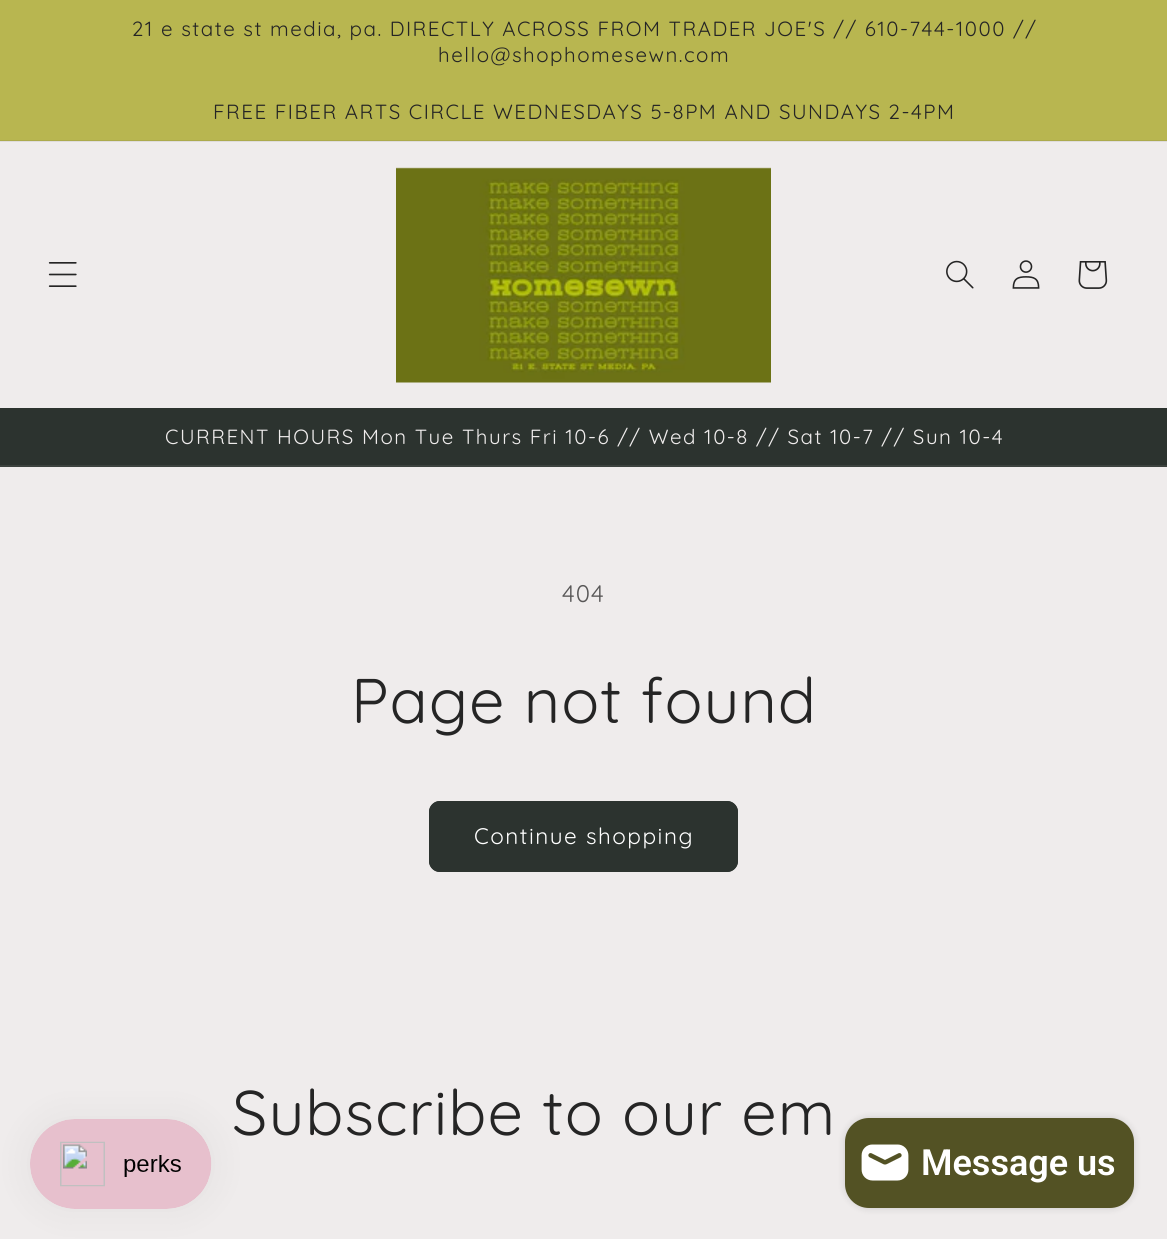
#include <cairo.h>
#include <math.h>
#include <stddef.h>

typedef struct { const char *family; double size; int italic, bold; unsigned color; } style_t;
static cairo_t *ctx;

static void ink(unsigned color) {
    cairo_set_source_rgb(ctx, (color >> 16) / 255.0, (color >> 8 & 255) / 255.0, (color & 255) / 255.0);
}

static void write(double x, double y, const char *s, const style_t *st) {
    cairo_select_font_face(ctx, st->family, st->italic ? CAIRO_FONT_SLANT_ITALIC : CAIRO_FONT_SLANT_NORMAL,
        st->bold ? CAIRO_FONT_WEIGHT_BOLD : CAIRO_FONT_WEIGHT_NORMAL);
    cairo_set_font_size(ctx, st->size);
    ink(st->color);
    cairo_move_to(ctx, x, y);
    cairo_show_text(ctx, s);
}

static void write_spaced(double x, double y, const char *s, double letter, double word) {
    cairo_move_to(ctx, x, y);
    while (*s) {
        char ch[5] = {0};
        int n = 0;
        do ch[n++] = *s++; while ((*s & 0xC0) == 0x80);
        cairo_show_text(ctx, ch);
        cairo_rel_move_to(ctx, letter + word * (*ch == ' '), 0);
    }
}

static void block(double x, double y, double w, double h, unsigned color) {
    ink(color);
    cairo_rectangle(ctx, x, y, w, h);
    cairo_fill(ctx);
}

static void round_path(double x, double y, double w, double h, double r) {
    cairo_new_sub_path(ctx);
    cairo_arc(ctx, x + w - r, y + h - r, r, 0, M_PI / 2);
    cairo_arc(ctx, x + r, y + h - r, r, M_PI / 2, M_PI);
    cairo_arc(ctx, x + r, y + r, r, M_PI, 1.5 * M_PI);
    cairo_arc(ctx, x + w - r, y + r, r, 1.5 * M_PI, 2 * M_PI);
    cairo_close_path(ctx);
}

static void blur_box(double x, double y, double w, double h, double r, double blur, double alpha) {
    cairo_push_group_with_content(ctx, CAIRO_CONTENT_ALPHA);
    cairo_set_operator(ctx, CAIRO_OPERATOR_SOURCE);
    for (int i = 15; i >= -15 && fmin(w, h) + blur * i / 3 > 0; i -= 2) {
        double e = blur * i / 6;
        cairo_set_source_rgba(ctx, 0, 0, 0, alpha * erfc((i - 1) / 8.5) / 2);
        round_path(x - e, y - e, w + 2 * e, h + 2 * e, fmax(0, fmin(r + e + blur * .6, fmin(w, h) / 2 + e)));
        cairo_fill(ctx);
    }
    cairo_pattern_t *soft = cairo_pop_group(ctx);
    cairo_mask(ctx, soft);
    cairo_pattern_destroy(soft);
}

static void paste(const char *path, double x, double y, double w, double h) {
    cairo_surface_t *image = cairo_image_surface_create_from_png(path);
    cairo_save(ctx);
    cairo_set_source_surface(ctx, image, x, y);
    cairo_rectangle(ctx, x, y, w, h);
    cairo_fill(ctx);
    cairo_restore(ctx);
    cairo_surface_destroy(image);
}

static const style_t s1 = {"Roboto SemiBold", 36, 0, 0, 0xffffff};

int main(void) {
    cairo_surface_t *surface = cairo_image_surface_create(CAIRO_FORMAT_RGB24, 1167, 1239);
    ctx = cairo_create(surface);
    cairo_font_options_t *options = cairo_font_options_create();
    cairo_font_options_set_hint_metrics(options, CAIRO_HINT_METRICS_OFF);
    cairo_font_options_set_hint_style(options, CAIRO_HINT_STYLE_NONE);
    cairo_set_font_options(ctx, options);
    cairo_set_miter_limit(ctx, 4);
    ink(0xefecec);
    cairo_paint(ctx);
    block(0, 141, 1167, 1, 0xdfdcdc);
    block(0, 0, 1167, 140, 0xb8b650);
    cairo_select_font_face(ctx, "Quicksand", CAIRO_FONT_SLANT_NORMAL, CAIRO_FONT_WEIGHT_NORMAL);
    cairo_set_font_size(ctx, 20.5);
    ink(0x252525);
    write_spaced(132, 36, "21 e state st media, pa. DIRECTLY ACROSS FROM TRADER JOE'S // 610-744-1000 //", 1.5, 0);
    write_spaced(438, 62, "hello@shophomesewn.com", 1.5, 0);
    block(0, 140, 1167, 1, 0xacaa4d);
    ink(0x252525);
    write_spaced(213, 119, "FREE FIBER ARTS CIRCLE WEDNESDAYS 5-8PM AND SUNDAYS 2-4PM", 1.5, 0);
    paste("pic1.png", 48, 262, 29, 25);
    paste("pic2.png", 396, 167, 375, 216);
    paste("pic3.png", 946, 260, 28, 29);
    paste("pic4.png", 1012, 260, 28, 29);
    paste("pic5.png", 1078, 261, 30, 28);
    block(0, 408, 1167, 57, 0x2c332f);
    block(0, 465, 1167, 2, 0x3c423e);
    ink(0xefecec);
    write_spaced(165, 444, "CURRENT HOURS Mon Tue Thurs Fri 10-6 // Wed 10-8 // Sat 10-7 // Sun 10-4", 1.5, 0);
    ink(0x000000);
    blur_box(30, 1119, 182, 90, 45, 19, 0.05);
    paste("pic6.png", 30, 1119, 182, 90);
    cairo_set_font_size(ctx, 24);
    ink(0x585757);
    write_spaced(562, 602, "404", 1, 0);
    cairo_set_font_size(ctx, 63);
    ink(0x252525);
    write_spaced(351, 723, "Page not found", 1, 0);
    ink(0x2c332f);
    round_path(429, 801, 309, 71, 11);
    cairo_fill(ctx);
    round_path(430, 802, 307, 69, 10);
    cairo_stroke(ctx);
    cairo_set_font_size(ctx, 22.5);
    ink(0xffffff);
    write_spaced(474, 844, "Continue shopping", 1.5, 0);
    cairo_set_font_size(ctx, 63);
    ink(0x252525);
    write_spaced(232, 1135, "Subscribe to our em", 1, 0);
    ink(0x000000);
    blur_box(845, 1118, 289, 90, 24, 4, 0.15);
    ink(0x535224);
    round_path(845, 1118, 289, 90, 24);
    cairo_fill(ctx);
    paste("pic7.png", 861, 1144, 48, 37);
    write(921, 1175, "Message us", &s1);
    cairo_surface_write_to_png(surface, "screenshot.png");
    cairo_font_options_destroy(options);
    cairo_destroy(ctx);
    cairo_surface_destroy(surface);
    return 0;
}
